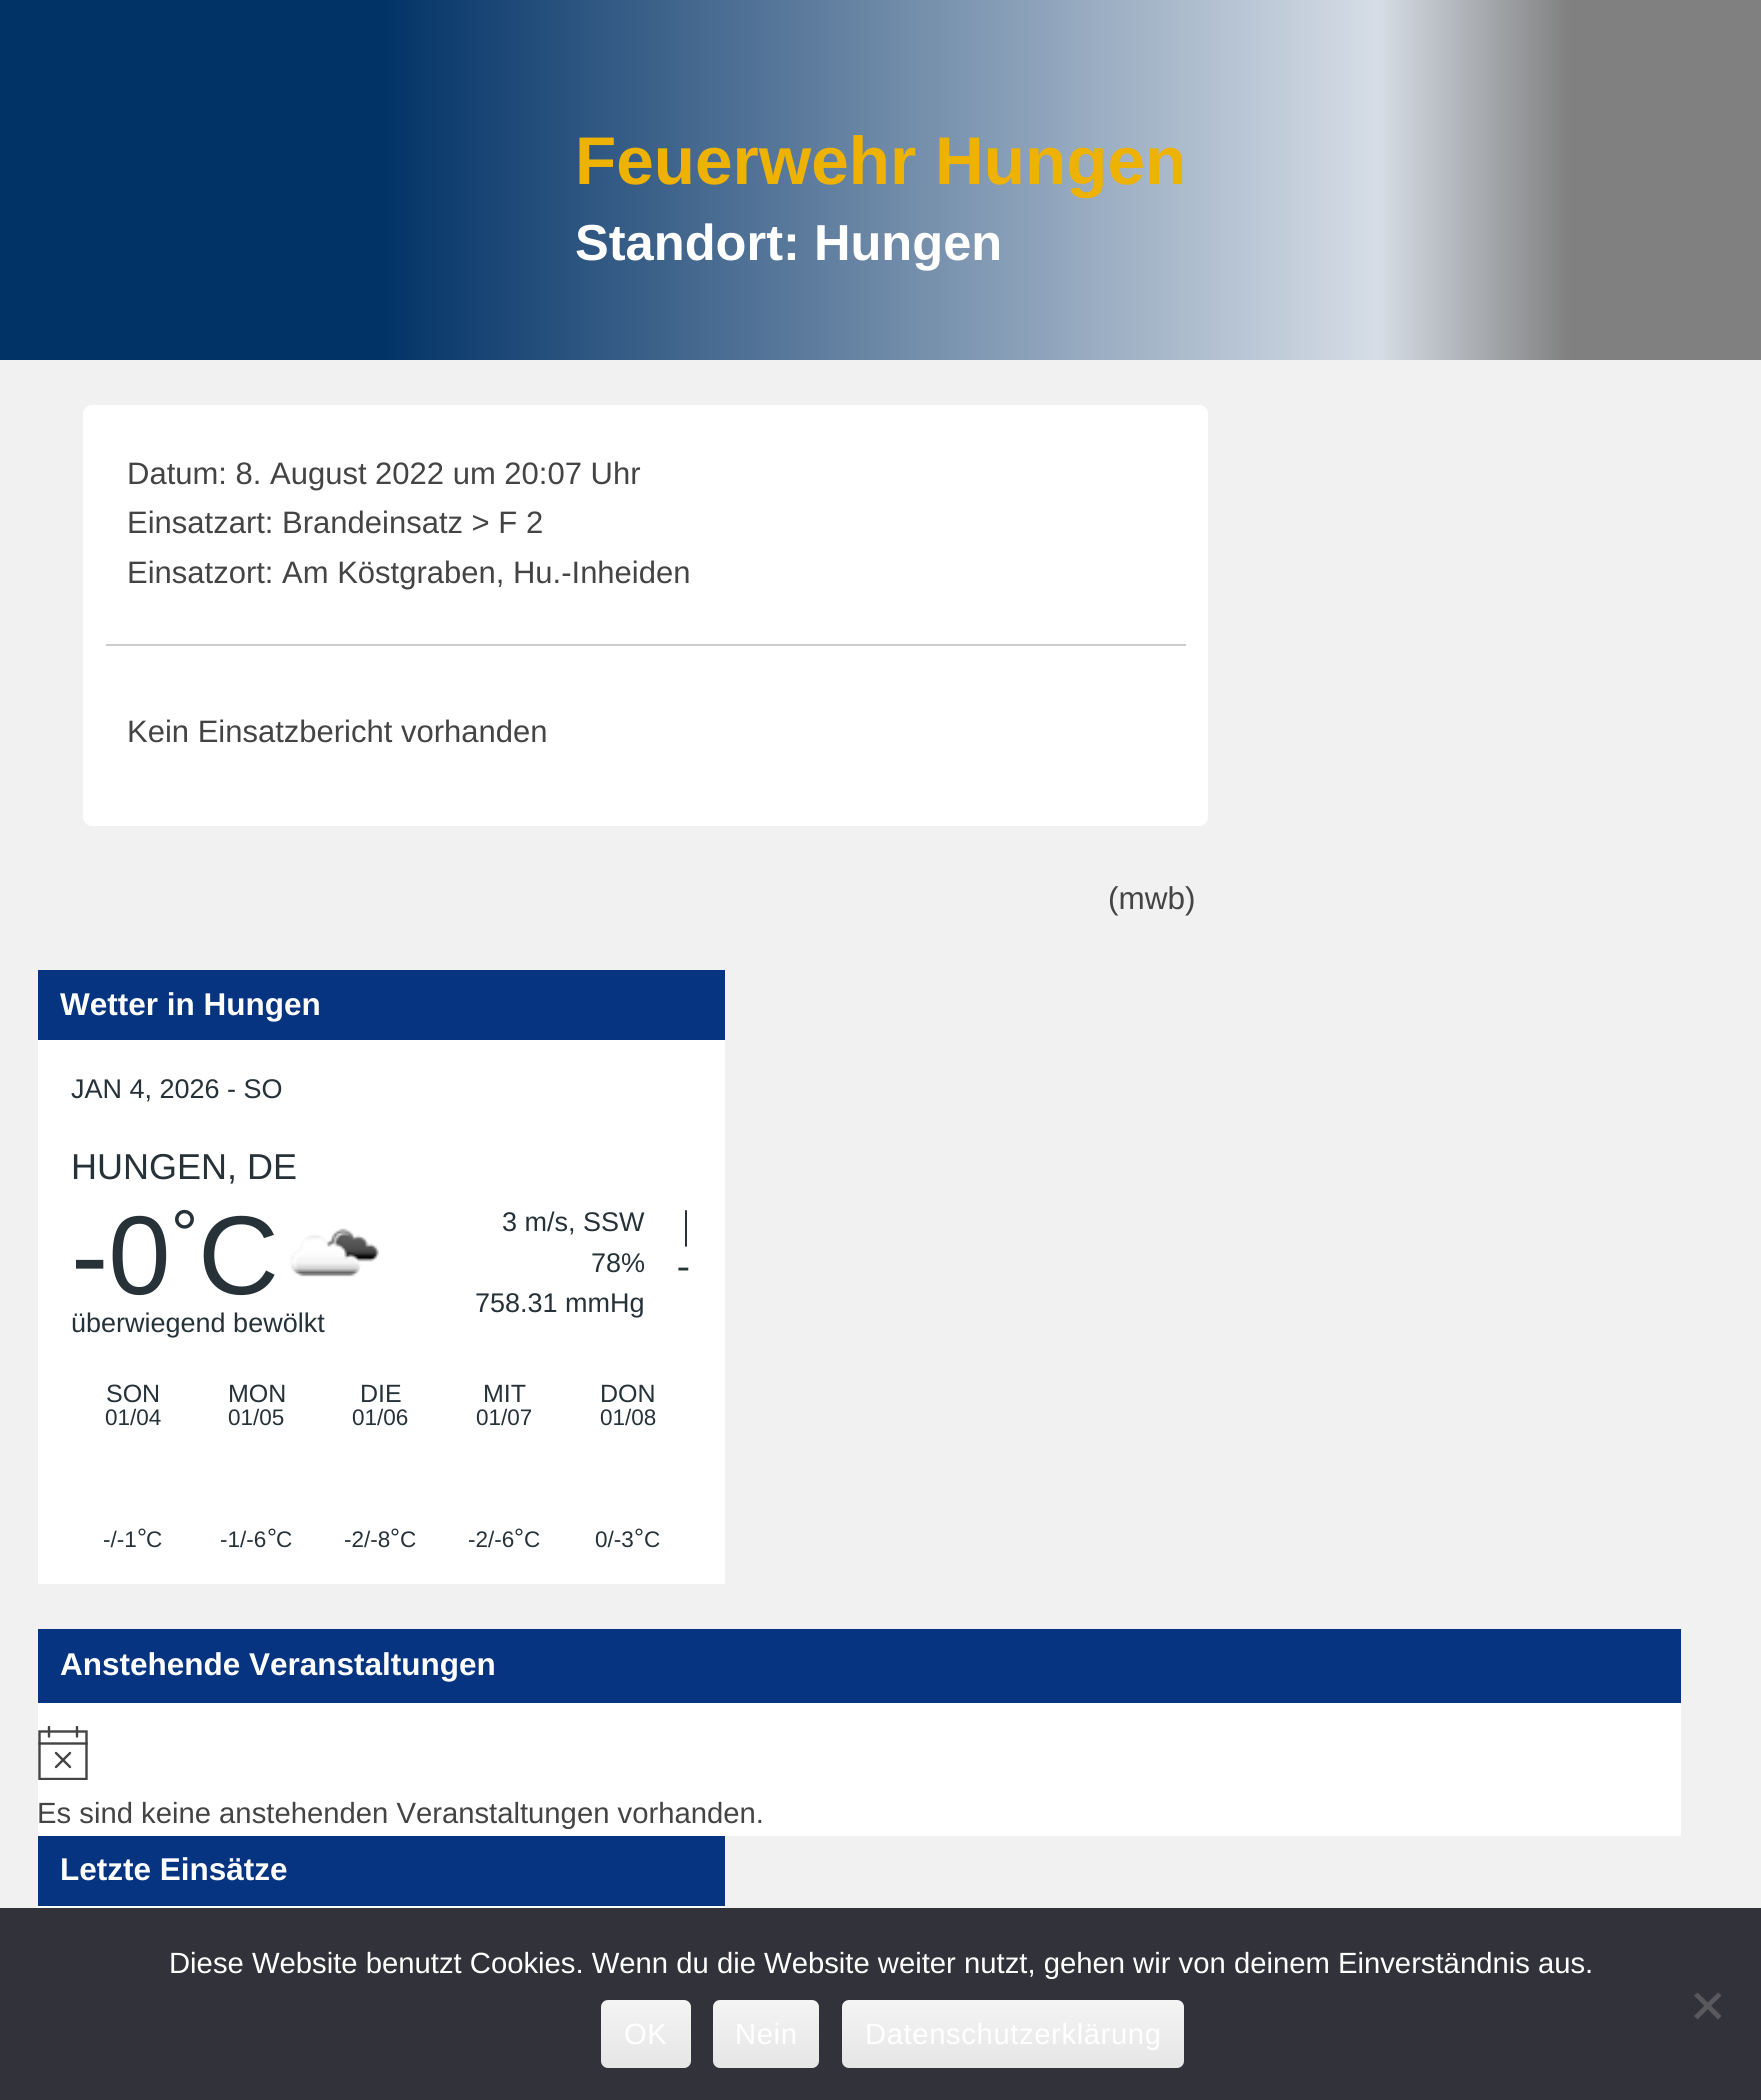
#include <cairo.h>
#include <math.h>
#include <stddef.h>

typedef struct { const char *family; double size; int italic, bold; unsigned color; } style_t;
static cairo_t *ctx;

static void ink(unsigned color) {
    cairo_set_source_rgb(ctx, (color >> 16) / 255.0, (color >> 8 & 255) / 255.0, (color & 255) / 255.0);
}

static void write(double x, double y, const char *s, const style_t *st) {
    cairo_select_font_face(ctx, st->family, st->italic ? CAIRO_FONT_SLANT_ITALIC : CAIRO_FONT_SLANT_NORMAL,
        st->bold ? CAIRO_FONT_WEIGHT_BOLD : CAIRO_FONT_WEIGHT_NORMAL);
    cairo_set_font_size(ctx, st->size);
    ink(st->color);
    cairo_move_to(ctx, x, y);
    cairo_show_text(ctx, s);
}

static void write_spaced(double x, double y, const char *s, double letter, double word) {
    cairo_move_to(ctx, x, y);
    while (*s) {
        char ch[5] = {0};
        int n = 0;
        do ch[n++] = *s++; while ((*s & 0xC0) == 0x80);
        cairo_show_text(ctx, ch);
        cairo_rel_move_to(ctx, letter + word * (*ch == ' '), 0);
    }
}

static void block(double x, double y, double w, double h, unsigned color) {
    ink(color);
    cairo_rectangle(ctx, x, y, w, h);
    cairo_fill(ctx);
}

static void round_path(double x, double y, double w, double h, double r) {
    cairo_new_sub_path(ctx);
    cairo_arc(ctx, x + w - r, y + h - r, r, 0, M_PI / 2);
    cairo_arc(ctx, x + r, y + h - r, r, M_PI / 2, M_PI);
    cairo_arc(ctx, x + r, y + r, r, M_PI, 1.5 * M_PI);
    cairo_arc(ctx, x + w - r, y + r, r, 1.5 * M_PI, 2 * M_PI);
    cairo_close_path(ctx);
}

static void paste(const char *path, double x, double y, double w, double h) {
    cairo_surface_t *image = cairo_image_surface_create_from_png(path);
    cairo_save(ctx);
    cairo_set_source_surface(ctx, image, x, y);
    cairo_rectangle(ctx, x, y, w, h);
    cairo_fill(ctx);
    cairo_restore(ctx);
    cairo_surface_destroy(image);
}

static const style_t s1 = {"Liberation Sans", 67.5, 0, 1, 0xeeb202};
static const style_t s2 = {"Liberation Sans", 50.6, 0, 1, 0xffffff};
static const style_t s3 = {"Liberation Sans", 31, 0, 0, 0x444444};
static const style_t s4 = {"Liberation Sans", 31.5, 0, 0, 0x444444};
static const style_t s5 = {"Liberation Sans", 31.5, 0, 1, 0xffffff};
static const style_t s6 = {"Liberation Sans", 27, 0, 0, 0x263238};
static const style_t s7 = {"Liberation Sans", 36, 0, 0, 0x263238};
static const style_t s8 = {"Liberation Sans", 112, 0, 0, 0x263238};
static const style_t s9 = {"Liberation Sans", 67.5, 0, 0, 0x263238};
static const style_t s10 = {"Liberation Serif", 40, 0, 0, 0x263238};
static const style_t s11 = {"Liberation Serif", 38, 0, 0, 0x263238};
static const style_t s12 = {"Liberation Sans", 25, 0, 0, 0x263238};
static const style_t s13 = {"Liberation Sans", 22.5, 0, 0, 0x263238};
static const style_t s14 = {"Liberation Sans", 29.25, 0, 0, 0x444444};
static const style_t s15 = {"Liberation Sans", 29.25, 0, 0, 0xffffff};

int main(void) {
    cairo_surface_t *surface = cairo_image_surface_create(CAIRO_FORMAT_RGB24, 1761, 2100);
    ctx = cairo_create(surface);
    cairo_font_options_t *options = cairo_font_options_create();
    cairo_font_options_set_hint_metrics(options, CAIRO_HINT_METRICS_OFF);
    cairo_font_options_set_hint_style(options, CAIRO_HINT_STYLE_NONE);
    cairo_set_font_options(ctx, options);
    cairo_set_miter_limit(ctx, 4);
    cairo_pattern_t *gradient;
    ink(0xf1f1f1);
    cairo_paint(ctx);
    block(0, 0, 383, 360, 0x023367);
    gradient = cairo_pattern_create_linear(383, 180, 1379, 180);
    cairo_pattern_add_color_stop_rgba(gradient, 0, 0.008, 0.2, 0.404, 1);
    cairo_pattern_add_color_stop_rgba(gradient, 1, 0.839, 0.867, 0.902, 1);
    cairo_set_source(ctx, gradient);
    cairo_pattern_destroy(gradient);
    cairo_rectangle(ctx, 383, 0, 996, 360);
    cairo_fill(ctx);
    write(575, 184, "Feuerwehr Hungen", &s1);
    write(575, 260, "Standort: Hungen", &s2);
    gradient = cairo_pattern_create_linear(1379, 180, 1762, 180);
    cairo_pattern_add_color_stop_rgba(gradient, 0, 0.839, 0.867, 0.902, 1);
    cairo_pattern_add_color_stop_rgba(gradient, 0.5, 0.502, 0.502, 0.502, 1);
    cairo_set_source(ctx, gradient);
    cairo_pattern_destroy(gradient);
    cairo_rectangle(ctx, 1379, 0, 382, 360);
    cairo_fill(ctx);
    ink(0xffffff);
    round_path(83, 405, 1125, 421, 9);
    cairo_fill(ctx);
    write(127, 484, "Datum: 8. August 2022 um 20:07 Uhr", &s3);
    write(127, 533, "Einsatzart: Brandeinsatz > F 2", &s3);
    write(127, 583, "Einsatzort: Am Köstgraben, Hu.-Inheiden", &s3);
    block(106, 644, 1080, 2, 0xcccccc);
    write(127, 742, "Kein Einsatzbericht vorhanden", &s3);
    write(1108, 909, "(mwb)", &s4);
    block(38, 1040, 687, 333, 0xffffff);
    block(38, 970, 687, 70, 0x063480);
    write(60, 1015, "Wetter in Hungen", &s5);
    write(71, 1098, "JAN 4, 2026 - SO", &s6);
    write(71, 1179, "HUNGEN, DE", &s7);
    write(71, 1294, "-0", &s8);
    write(171, 1257, "°", &s9);
    write(198, 1294, "C", &s8);
    paste("pic1.png", 290, 1228, 89, 49);
    write(71, 1332, "überwiegend bewölkt", &s6);
    write(502, 1231, "3 m/s, SSW", &s6);
    write(682, 1238, "|", &s10);
    write(591, 1272, "78%", &s6);
    write(677, 1278, "-", &s11);
    write(475, 1312, "758.31 mmHg", &s6);
    block(38, 1373, 687, 211, 0xffffff);
    write(106, 1402, "SON", &s12);
    write(105, 1425, "01/04", &s13);
    write(228, 1402, "MON", &s12);
    write(228, 1425, "01/05", &s13);
    write(360, 1402, "DIE", &s12);
    write(352, 1425, "01/06", &s13);
    write(483, 1402, "MIT", &s12);
    write(476, 1425, "01/07", &s13);
    write(600, 1402, "DON", &s12);
    write(600, 1425, "01/08", &s13);
    write(103, 1547, "-/-1", &s13);
    write(137, 1546, "°", &s12);
    write(146, 1547, "C", &s13);
    write(220, 1547, "-1/-6", &s13);
    write(267, 1546, "°", &s12);
    write(276, 1547, "C", &s13);
    write(344, 1547, "-2/-8", &s13);
    write(390, 1546, "°", &s12);
    write(400, 1547, "C", &s13);
    write(468, 1547, "-2/-6", &s13);
    write(514, 1546, "°", &s12);
    write(524, 1547, "C", &s13);
    write(595, 1547, "0/-3", &s13);
    write(634, 1546, "°", &s12);
    write(644, 1547, "C", &s13);
    block(38, 1703, 1643, 133, 0xffffff);
    block(38, 1629, 1643, 74, 0x063480);
    write(60, 1675, "Anstehende Veranstaltungen", &s5);
    cairo_save(ctx);
    cairo_rectangle(ctx, 38, 1726, 50, 54);
    cairo_clip(ctx);
    cairo_new_path(ctx);
    cairo_move_to(ctx, 39.5, 1731.5);
    cairo_line_to(ctx, 86.5, 1731.5);
    cairo_line_to(ctx, 86.5, 1779);
    cairo_line_to(ctx, 39.5, 1779);
    cairo_close_path(ctx);
    ink(0x444444);
    cairo_set_line_width(ctx, 2.4);
    cairo_stroke(ctx);
    cairo_new_path(ctx);
    cairo_move_to(ctx, 49, 1727);
    cairo_line_to(ctx, 49, 1736.5);
    cairo_move_to(ctx, 77, 1727);
    cairo_line_to(ctx, 77, 1736.5);
    cairo_set_line_cap(ctx, CAIRO_LINE_CAP_ROUND);
    cairo_stroke(ctx);
    cairo_restore(ctx);
    cairo_new_path(ctx);
    cairo_move_to(ctx, 39.5, 1743.5);
    cairo_line_to(ctx, 86.5, 1743.5);
    ink(0x444444);
    cairo_set_line_width(ctx, 2.4);
    cairo_set_line_cap(ctx, CAIRO_LINE_CAP_SQUARE);
    cairo_stroke(ctx);
    cairo_new_path(ctx);
    cairo_move_to(ctx, 56, 1753);
    cairo_line_to(ctx, 70, 1767);
    cairo_move_to(ctx, 70, 1753);
    cairo_line_to(ctx, 56, 1767);
    cairo_set_line_cap(ctx, CAIRO_LINE_CAP_ROUND);
    cairo_stroke(ctx);
    write(37, 1823, "Es sind keine anstehenden Veranstaltungen vorhanden.", &s14);
    block(38, 1906, 687, 2, 0xffffff);
    block(38, 1836, 687, 70, 0x063480);
    write(60, 1880, "Letzte Einsätze", &s5);
    block(0, 1908, 1761, 192, 0x32323a);
    write(169, 1973, "Diese Website benutzt Cookies. Wenn du die Website weiter nutzt, gehen wir von deinem Einverständnis aus.", &s15);
    ink(0x59595d);
    cairo_new_path(ctx);
    cairo_move_to(ctx, 1718, 1992.5);
    cairo_line_to(ctx, 1721.5, 1995.5);
    cairo_line_to(ctx, 1697.5, 2019.5);
    cairo_line_to(ctx, 1694, 2016);
    cairo_close_path(ctx);
    cairo_fill(ctx);
    cairo_new_path(ctx);
    cairo_move_to(ctx, 1694, 1995.5);
    cairo_line_to(ctx, 1697.5, 1992.5);
    cairo_line_to(ctx, 1721.5, 2016);
    cairo_line_to(ctx, 1718, 2019.5);
    cairo_close_path(ctx);
    cairo_fill(ctx);
    gradient = cairo_pattern_create_linear(646, 2000, 646, 2068);
    cairo_pattern_add_color_stop_rgba(gradient, 0, 0.957, 0.957, 0.957, 1);
    cairo_pattern_add_color_stop_rgba(gradient, 1, 0.902, 0.902, 0.902, 1);
    cairo_set_source(ctx, gradient);
    cairo_pattern_destroy(gradient);
    round_path(601, 2000, 90, 68, 7);
    cairo_fill(ctx);
    ink(0xffffff);
    write_spaced(624, 2044, "OK", 0.6, 0);
    gradient = cairo_pattern_create_linear(766, 2000, 766, 2068);
    cairo_pattern_add_color_stop_rgba(gradient, 0, 0.957, 0.957, 0.957, 1);
    cairo_pattern_add_color_stop_rgba(gradient, 1, 0.902, 0.902, 0.902, 1);
    cairo_set_source(ctx, gradient);
    cairo_pattern_destroy(gradient);
    round_path(713, 2000, 106, 68, 7);
    cairo_fill(ctx);
    ink(0xffffff);
    write_spaced(735, 2044, "Nein", 0.6, 0);
    gradient = cairo_pattern_create_linear(1013, 2000, 1013, 2068);
    cairo_pattern_add_color_stop_rgba(gradient, 0, 0.957, 0.957, 0.957, 1);
    cairo_pattern_add_color_stop_rgba(gradient, 1, 0.902, 0.902, 0.902, 1);
    cairo_set_source(ctx, gradient);
    cairo_pattern_destroy(gradient);
    round_path(842, 2000, 342, 68, 7);
    cairo_fill(ctx);
    ink(0xffffff);
    write_spaced(865, 2044, "Datenschutzerklärung", 0.6, 0);
    cairo_surface_write_to_png(surface, "screenshot.png");
    cairo_font_options_destroy(options);
    cairo_destroy(ctx);
    cairo_surface_destroy(surface);
    return 0;
}
